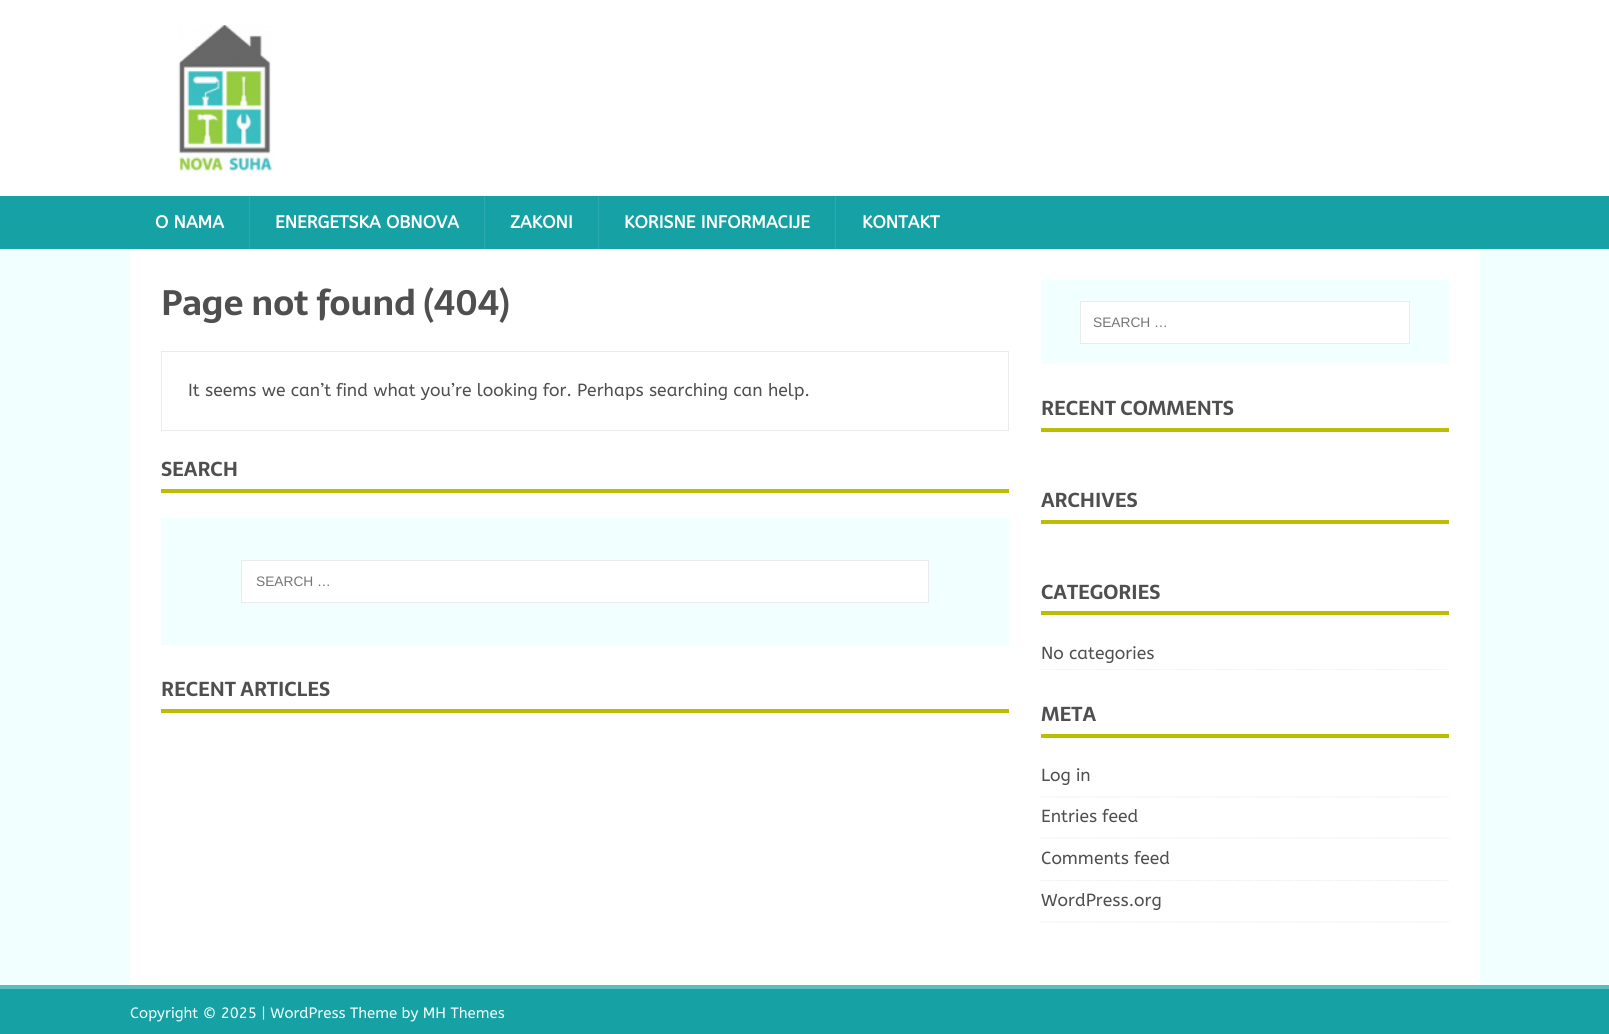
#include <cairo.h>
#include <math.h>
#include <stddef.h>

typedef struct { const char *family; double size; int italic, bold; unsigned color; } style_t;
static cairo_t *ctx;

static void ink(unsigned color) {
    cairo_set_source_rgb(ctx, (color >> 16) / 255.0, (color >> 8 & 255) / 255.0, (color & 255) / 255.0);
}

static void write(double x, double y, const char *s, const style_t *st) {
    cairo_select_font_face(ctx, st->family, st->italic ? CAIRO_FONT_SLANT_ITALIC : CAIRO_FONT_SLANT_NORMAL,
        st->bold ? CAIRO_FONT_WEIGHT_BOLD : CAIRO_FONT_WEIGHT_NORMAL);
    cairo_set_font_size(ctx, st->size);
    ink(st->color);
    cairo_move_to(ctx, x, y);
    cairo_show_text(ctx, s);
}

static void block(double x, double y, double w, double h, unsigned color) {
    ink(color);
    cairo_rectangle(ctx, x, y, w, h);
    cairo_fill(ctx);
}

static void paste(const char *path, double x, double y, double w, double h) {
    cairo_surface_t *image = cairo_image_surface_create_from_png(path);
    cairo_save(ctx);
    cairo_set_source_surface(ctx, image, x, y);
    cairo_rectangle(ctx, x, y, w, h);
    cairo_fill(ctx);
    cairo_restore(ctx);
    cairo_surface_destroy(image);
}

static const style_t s1 = {"ABeeZee", 17.5, 0, 1, 0xffffff};
static const style_t s2 = {"Sarala", 35, 0, 1, 0x4f4f4f};
static const style_t s3 = {"ABeeZee", 17.5, 0, 0, 0x4f4f4f};
static const style_t s4 = {"Sarala", 20, 0, 1, 0x4f4f4f};
static const style_t s5 = {"Liberation Sans", 13.75, 0, 0, 0x757575};
static const style_t s6 = {"ABeeZee", 15, 0, 0, 0xf2ffff};

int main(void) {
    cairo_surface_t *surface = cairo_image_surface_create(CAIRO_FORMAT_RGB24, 1609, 1034);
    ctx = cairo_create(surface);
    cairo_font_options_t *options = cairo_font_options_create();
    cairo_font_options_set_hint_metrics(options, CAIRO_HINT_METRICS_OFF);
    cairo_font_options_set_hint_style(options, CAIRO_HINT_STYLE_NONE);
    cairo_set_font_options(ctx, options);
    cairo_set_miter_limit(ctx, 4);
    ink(0xf2ffff);
    cairo_paint(ctx);
    block(0, 0, 1609, 196, 0xffffff);
    paste("pic1.png", 178, 25, 95, 147);
    block(0, 196, 1609, 53, 0x16a1a4);
    write(155, 228, "O NAMA", &s1);
    block(249, 196, 1, 53, 0x2daaad);
    write(275, 228, "ENERGETSKA OBNOVA", &s1);
    block(484, 196, 1, 53, 0x2daaad);
    write(510, 228, "ZAKONI", &s1);
    block(598, 196, 1, 53, 0x2daaad);
    write(624, 228, "KORISNE INFORMACIJE", &s1);
    block(835, 196, 1, 53, 0x2daaad);
    write(862, 228, "KONTAKT", &s1);
    block(130, 249, 1350, 736, 0xffffff);
    write(161, 315, "Page not found (404)", &s2);
    cairo_rectangle(ctx, 161.5, 351.5, 847, 79);
    ink(0xebebeb);
    cairo_set_line_width(ctx, 1);
    cairo_stroke(ctx);
    write(188, 396, "It seems we can’t find what you’re looking for. Perhaps searching can help.", &s3);
    block(161, 489, 848, 4, 0xbbbd00);
    write(161, 476, "SEARCH", &s4);
    block(161, 518, 848, 127, 0xf2ffff);
    ink(0xffffff);
    cairo_rectangle(ctx, 241.5, 560.5, 687, 42);
    cairo_fill_preserve(ctx);
    ink(0xebebeb);
    cairo_stroke(ctx);
    write(256, 586, "SEARCH …", &s5);
    block(161, 709, 848, 4, 0xbbbd00);
    write(161, 696, "RECENT ARTICLES", &s4);
    block(1041, 280, 408, 84, 0xf2ffff);
    ink(0xffffff);
    cairo_rectangle(ctx, 1080.5, 301.5, 329, 42);
    cairo_fill_preserve(ctx);
    ink(0xebebeb);
    cairo_stroke(ctx);
    write(1093, 327, "SEARCH …", &s5);
    block(1041, 428, 408, 4, 0xbbbd00);
    write(1041, 415, "RECENT COMMENTS", &s4);
    block(1041, 520, 408, 4, 0xbbbd00);
    write(1041, 507, "ARCHIVES", &s4);
    block(1041, 611, 408, 4, 0xbbbd00);
    write(1041, 599, "CATEGORIES", &s4);
    cairo_save(ctx);
    cairo_rectangle(ctx, 1041, 580, 408, 90);
    cairo_clip(ctx);
    cairo_new_path(ctx);
    cairo_move_to(ctx, 1041, 669.5);
    cairo_line_to(ctx, 1449, 669.5);
    ink(0xebebeb);
    cairo_set_line_width(ctx, 1.2);
    cairo_set_dash(ctx, (double[]){1.25, 1.25}, 2, 0);
    cairo_stroke(ctx);
    cairo_restore(ctx);
    write(1041, 659, "No categories", &s3);
    block(1041, 734, 408, 4, 0xbbbd00);
    write(1041, 721, "META", &s4);
    cairo_new_path(ctx);
    cairo_move_to(ctx, 1041, 797);
    cairo_line_to(ctx, 1449, 797);
    ink(0xebebeb);
    cairo_set_line_width(ctx, 1.2);
    cairo_set_dash(ctx, (double[]){1.25, 1.25}, 2, 0);
    cairo_stroke(ctx);
    write(1041, 781, "Log in", &s3);
    cairo_new_path(ctx);
    cairo_move_to(ctx, 1041, 838);
    cairo_line_to(ctx, 1449, 838);
    ink(0xebebeb);
    cairo_stroke(ctx);
    write(1041, 822, "Entries feed", &s3);
    cairo_new_path(ctx);
    cairo_move_to(ctx, 1041, 880.5);
    cairo_line_to(ctx, 1449, 880.5);
    ink(0xebebeb);
    cairo_stroke(ctx);
    write(1041, 864, "Comments feed", &s3);
    cairo_new_path(ctx);
    cairo_move_to(ctx, 1041, 922);
    cairo_line_to(ctx, 1449, 922);
    ink(0xebebeb);
    cairo_stroke(ctx);
    write(1041, 906, "WordPress.org", &s3);
    block(0, 989, 1609, 45, 0x16a1a4);
    block(0, 985, 1609, 4, 0x5cbdbf);
    write(130, 1018, "Copyright © 2025 | WordPress Theme by MH Themes", &s6);
    cairo_surface_write_to_png(surface, "screenshot.png");
    cairo_font_options_destroy(options);
    cairo_destroy(ctx);
    cairo_surface_destroy(surface);
    return 0;
}
